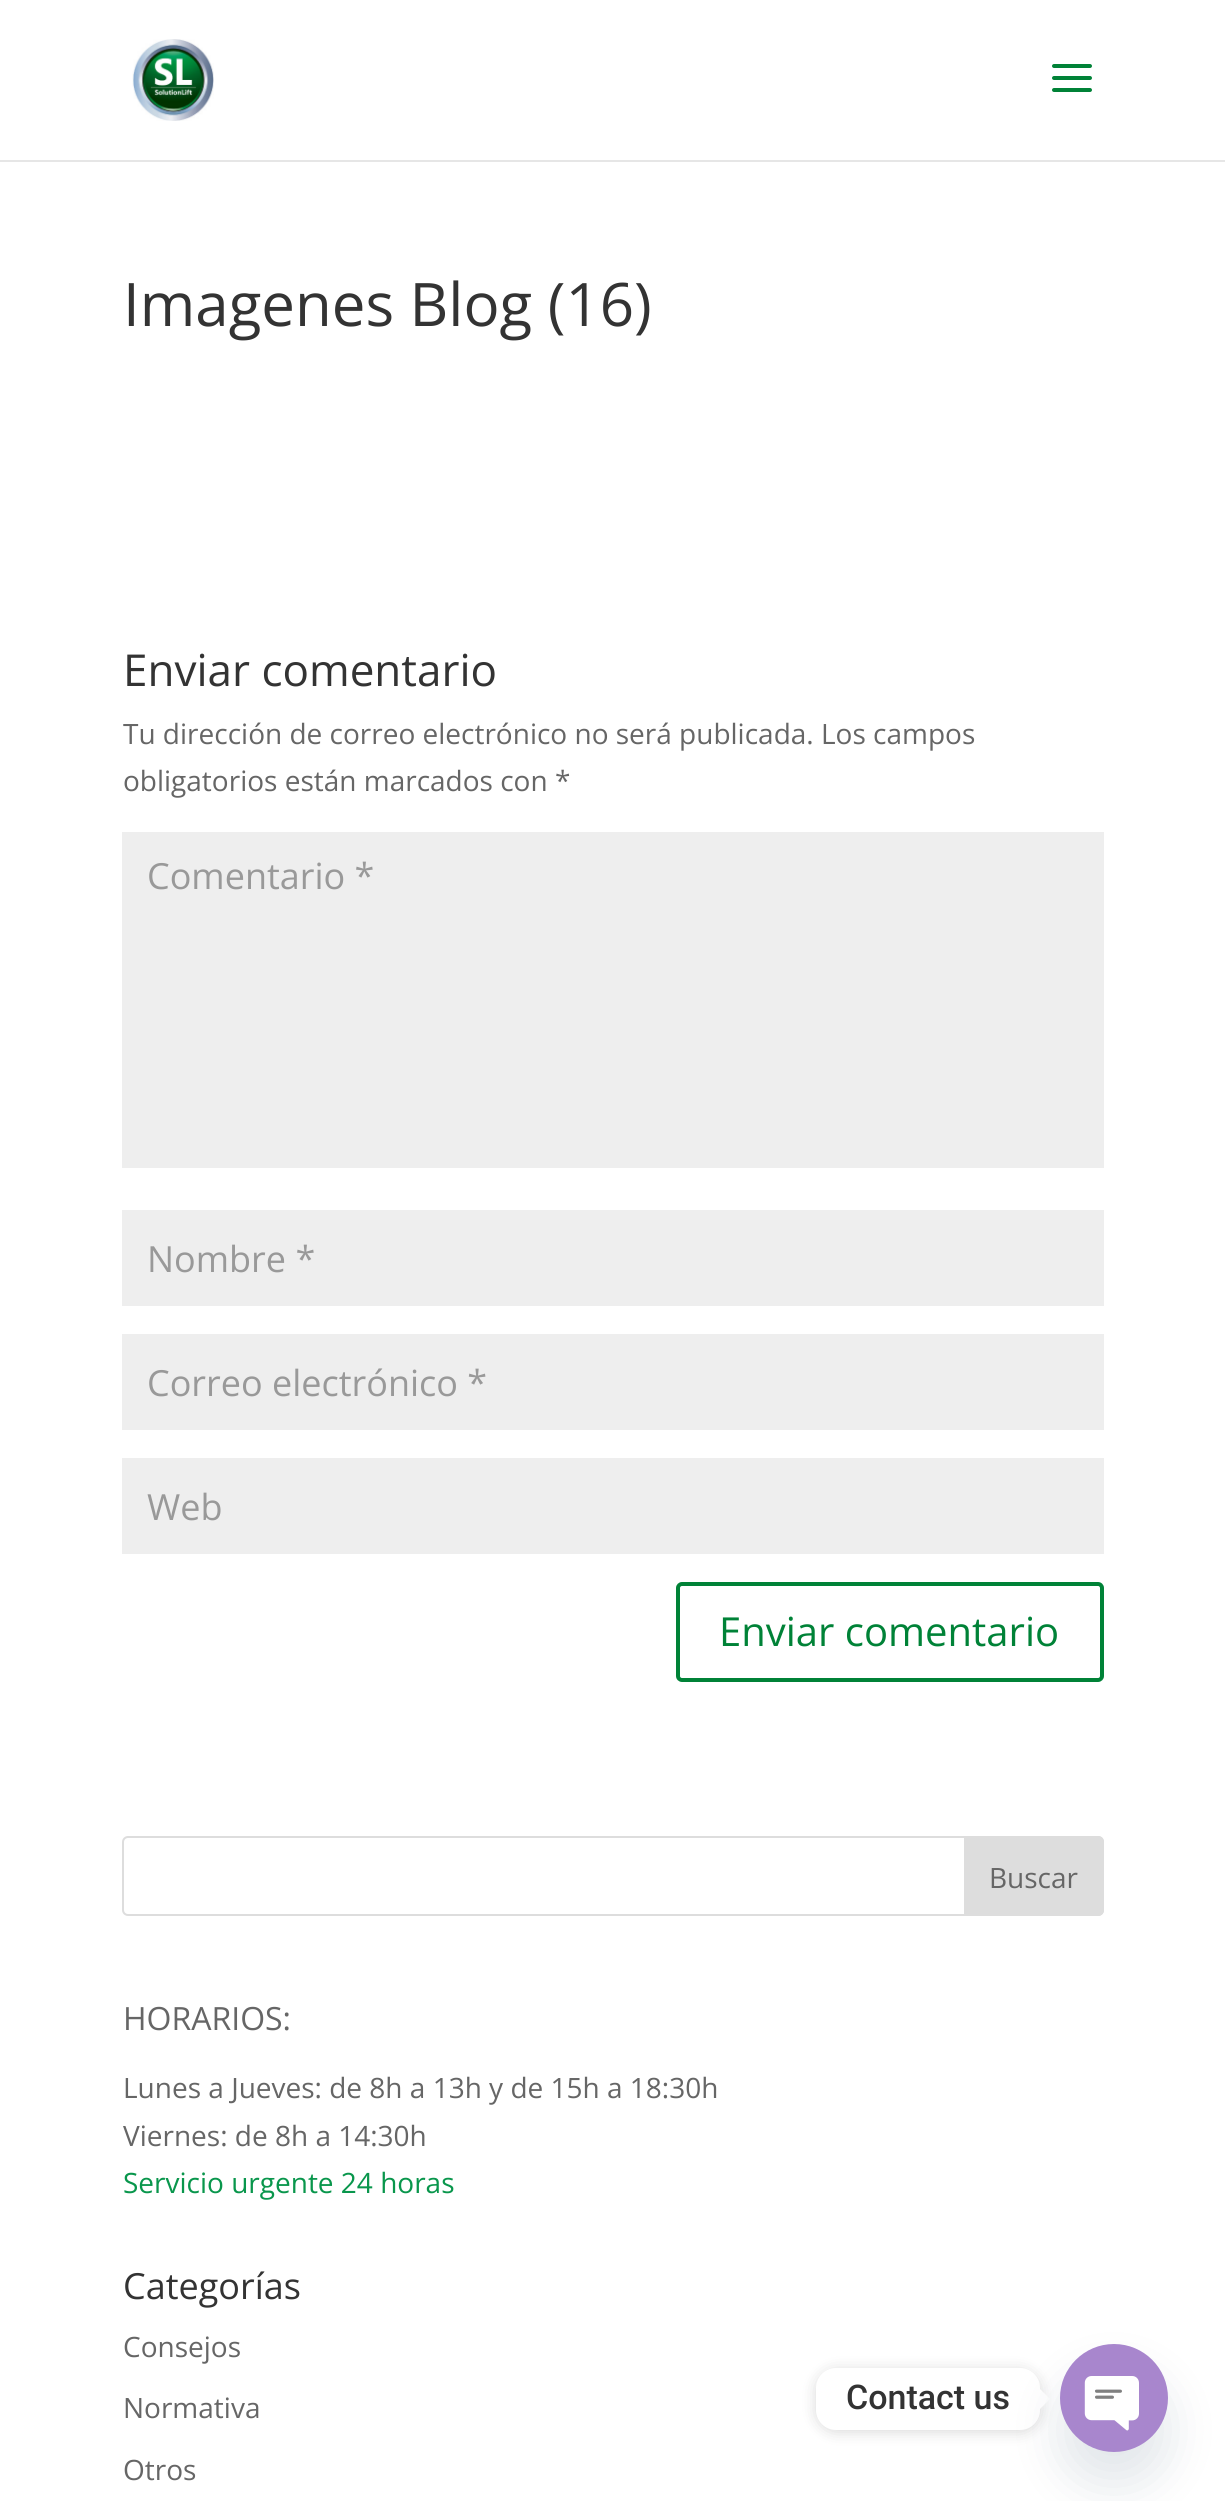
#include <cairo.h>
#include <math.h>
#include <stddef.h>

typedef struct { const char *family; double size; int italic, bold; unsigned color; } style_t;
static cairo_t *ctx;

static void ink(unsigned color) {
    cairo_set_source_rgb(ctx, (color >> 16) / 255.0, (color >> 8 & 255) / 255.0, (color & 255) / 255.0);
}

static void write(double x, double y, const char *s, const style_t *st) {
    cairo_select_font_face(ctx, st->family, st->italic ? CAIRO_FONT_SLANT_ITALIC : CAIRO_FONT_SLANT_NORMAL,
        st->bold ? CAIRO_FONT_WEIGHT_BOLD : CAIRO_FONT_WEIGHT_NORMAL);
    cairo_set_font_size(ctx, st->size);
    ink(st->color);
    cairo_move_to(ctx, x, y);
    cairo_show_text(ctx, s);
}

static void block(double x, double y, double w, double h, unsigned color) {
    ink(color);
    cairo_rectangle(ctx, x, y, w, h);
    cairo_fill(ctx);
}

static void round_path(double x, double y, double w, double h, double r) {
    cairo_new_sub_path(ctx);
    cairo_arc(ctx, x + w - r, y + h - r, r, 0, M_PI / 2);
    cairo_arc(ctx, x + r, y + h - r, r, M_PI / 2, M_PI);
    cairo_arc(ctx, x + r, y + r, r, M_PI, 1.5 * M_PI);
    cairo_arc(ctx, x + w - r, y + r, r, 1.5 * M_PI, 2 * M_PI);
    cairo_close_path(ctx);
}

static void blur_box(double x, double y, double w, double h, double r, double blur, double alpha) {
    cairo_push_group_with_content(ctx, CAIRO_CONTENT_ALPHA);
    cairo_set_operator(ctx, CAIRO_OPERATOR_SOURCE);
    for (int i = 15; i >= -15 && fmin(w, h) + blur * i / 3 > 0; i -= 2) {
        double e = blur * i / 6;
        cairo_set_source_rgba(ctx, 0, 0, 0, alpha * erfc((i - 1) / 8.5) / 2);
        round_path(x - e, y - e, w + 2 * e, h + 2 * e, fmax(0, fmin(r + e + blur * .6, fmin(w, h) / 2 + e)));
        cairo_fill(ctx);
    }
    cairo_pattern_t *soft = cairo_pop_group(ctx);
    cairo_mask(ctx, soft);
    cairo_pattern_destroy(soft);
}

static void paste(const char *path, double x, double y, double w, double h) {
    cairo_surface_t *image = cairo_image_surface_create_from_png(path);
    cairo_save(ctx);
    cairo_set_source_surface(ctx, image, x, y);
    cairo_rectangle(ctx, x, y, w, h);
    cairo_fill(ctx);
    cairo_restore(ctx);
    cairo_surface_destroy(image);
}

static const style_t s1 = {"Open Sans", 60, 0, 0, 0x333333};
static const style_t s2 = {"Open Sans", 44, 0, 0, 0x333333};
static const style_t s3 = {"Open Sans", 28, 0, 0, 0x666666};
static const style_t s4 = {"Open Sans", 36, 0, 0, 0x999999};
static const style_t s5 = {"Open Sans", 40, 0, 0, 0x008237};
static const style_t s6 = {"Open Sans", 32, 0, 0, 0x666666};
static const style_t s7 = {"Open Sans", 28, 0, 0, 0x09964c};
static const style_t s8 = {"Open Sans", 36, 0, 0, 0x333333};
static const style_t s9 = {"Roboto Medium", 34, 0, 0, 0x333333};

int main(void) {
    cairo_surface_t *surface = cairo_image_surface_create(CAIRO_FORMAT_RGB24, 1225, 2501);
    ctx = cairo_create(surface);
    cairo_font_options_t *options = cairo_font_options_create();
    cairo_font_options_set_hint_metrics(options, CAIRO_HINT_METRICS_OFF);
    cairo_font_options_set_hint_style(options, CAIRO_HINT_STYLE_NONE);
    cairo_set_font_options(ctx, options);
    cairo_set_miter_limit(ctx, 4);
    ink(0xffffff);
    cairo_paint(ctx);
    block(0, 160, 1225, 2, 0xe6e6e6);
    paste("pic1.png", 132, 39, 82, 82);
    paste("pic2.png", 1052, 64, 40, 28);
    write(123, 326, "Imagenes Blog (16)", &s1);
    write(123, 686, "Enviar comentario", &s2);
    write(123, 744, "Tu dirección de correo electrónico no será publicada. Los campos", &s3);
    write(123, 791, "obligatorios están marcados con *", &s3);
    block(122, 832, 982, 336, 0xeeeeee);
    write(147, 889, "Comentario *", &s4);
    block(122, 1210, 982, 96, 0xeeeeee);
    write(147, 1272, "Nombre *", &s4);
    block(122, 1334, 982, 96, 0xeeeeee);
    write(147, 1396, "Correo electrónico *", &s4);
    block(122, 1458, 982, 96, 0xeeeeee);
    write(147, 1520, "Web", &s4);
    round_path(678, 1584, 424, 96, 4);
    ink(0x008237);
    cairo_set_line_width(ctx, 4);
    cairo_stroke(ctx);
    write(719, 1646, "Enviar comentario", &s5);
    round_path(123, 1837, 980, 78, 5);
    ink(0xdddddd);
    cairo_set_line_width(ctx, 2);
    cairo_stroke(ctx);
    cairo_new_path(ctx);
    cairo_move_to(ctx, 965, 1837);
    cairo_line_to(ctx, 1098, 1837);
    cairo_curve_to(ctx, 1101, 1837, 1103, 1839, 1103, 1842);
    cairo_line_to(ctx, 1103, 1910);
    cairo_curve_to(ctx, 1103, 1913, 1101, 1915, 1098, 1915);
    cairo_line_to(ctx, 965, 1915);
    cairo_close_path(ctx);
    cairo_fill_preserve(ctx);
    cairo_stroke(ctx);
    write(989, 1888, "Buscar", &s3);
    write(123, 2030, "HORARIOS:", &s6);
    write(123, 2098, "Lunes a Jueves: de 8h a 13h y de 15h a 18:30h", &s3);
    write(123, 2146, "Viernes: de 8h a 14:30h", &s3);
    write(123, 2193, "Servicio urgente 24 horas", &s7);
    write(123, 2299, "Categorías", &s8);
    write(123, 2357, "Consejos", &s3);
    write(123, 2418, "Normativa", &s3);
    write(123, 2480, "Otros", &s3);
    ink(0x000000);
    blur_box(816, 2370, 224, 62, 20, 7.5, 0.15);
    ink(0xffffff);
    round_path(816, 2368, 224, 62, 20);
    cairo_fill(ctx);
    write(846, 2409, "Contact us", &s9);
    ink(0xffffff);
    cairo_new_path(ctx);
    cairo_move_to(ctx, 1040, 2409);
    cairo_line_to(ctx, 1040, 2389);
    cairo_line_to(ctx, 1050, 2399);
    cairo_close_path(ctx);
    cairo_fill(ctx);
    ink(0x49687e);
    blur_box(1060, 2376, 108, 108, 54, 24, 0.16);
    paste("pic3.png", 1060, 2344, 108, 108);
    cairo_surface_write_to_png(surface, "screenshot.png");
    cairo_font_options_destroy(options);
    cairo_destroy(ctx);
    cairo_surface_destroy(surface);
    return 0;
}
